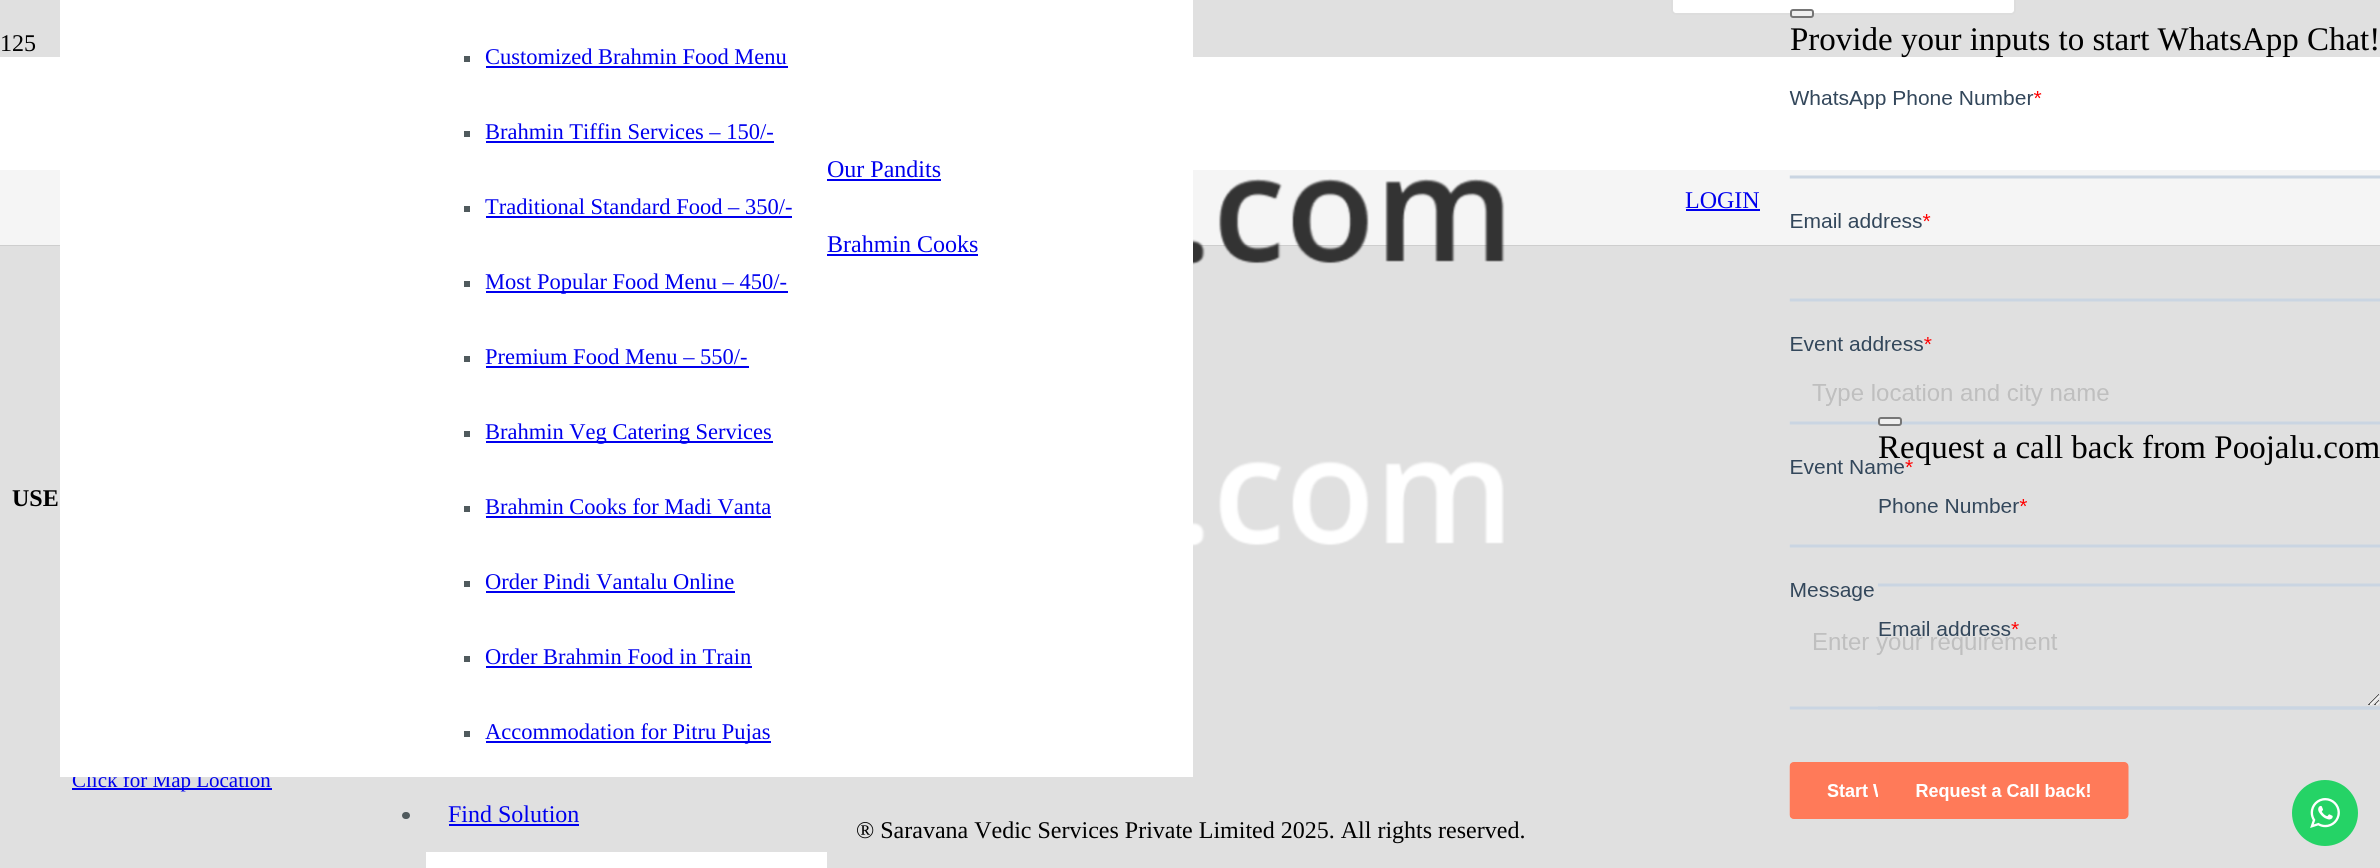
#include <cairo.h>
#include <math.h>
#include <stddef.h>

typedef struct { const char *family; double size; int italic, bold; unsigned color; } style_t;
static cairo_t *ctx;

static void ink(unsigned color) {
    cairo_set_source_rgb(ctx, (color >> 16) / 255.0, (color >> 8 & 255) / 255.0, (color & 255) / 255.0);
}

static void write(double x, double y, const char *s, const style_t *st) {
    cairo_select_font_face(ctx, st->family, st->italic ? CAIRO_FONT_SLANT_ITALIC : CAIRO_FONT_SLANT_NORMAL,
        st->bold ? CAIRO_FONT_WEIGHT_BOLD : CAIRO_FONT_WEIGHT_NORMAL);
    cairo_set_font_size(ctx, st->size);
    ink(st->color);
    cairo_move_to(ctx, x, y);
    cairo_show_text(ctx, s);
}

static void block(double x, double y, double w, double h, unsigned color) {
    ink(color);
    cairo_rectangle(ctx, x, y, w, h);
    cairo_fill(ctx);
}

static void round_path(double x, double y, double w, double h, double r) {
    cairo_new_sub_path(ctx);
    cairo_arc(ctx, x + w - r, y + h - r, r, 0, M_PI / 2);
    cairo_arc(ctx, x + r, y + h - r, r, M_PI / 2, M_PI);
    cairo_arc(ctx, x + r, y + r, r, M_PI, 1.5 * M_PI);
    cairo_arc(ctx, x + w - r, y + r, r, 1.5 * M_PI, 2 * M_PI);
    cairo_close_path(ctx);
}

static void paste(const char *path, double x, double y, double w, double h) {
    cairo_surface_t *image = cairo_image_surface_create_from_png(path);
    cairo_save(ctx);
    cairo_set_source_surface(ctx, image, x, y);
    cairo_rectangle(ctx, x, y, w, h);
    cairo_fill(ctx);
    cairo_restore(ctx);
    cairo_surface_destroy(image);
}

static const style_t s1 = {"Liberation Serif", 33, 0, 0, 0x000000};
static const style_t s2 = {"Liberation Serif", 24, 0, 1, 0x000000};
static const style_t s3 = {"Liberation Serif", 21, 0, 0, 0x0000ee};
static const style_t s4 = {"Liberation Serif", 24, 0, 0, 0x000000};
static const style_t s5 = {"Liberation Serif", 22.5, 0, 0, 0x0000ee};
static const style_t s6 = {"Liberation Serif", 24, 0, 0, 0x0000ee};

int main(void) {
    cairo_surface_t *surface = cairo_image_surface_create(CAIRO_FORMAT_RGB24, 2380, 868);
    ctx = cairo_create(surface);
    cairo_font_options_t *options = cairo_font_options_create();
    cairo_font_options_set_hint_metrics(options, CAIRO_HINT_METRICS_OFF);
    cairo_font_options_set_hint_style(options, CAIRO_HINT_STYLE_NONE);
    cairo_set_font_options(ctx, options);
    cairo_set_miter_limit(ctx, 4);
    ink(0xe0e0e0);
    cairo_paint(ctx);
    ink(0xffffff);
    round_path(1672, -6, 343, 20, 4);
    cairo_fill_preserve(ctx);
    ink(0xdddddd);
    cairo_stroke(ctx);
    ink(0xefefef);
    round_path(1791, 10, 22, 7, 2);
    cairo_fill_preserve(ctx);
    ink(0x767676);
    cairo_stroke(ctx);
    block(0, 57, 2380, 113, 0xffffff);
    write(1790, 50, "Provide your inputs to start WhatsApp Chat!", &s1);
    ink(0xcecece);
    cairo_new_path(ctx);
    cairo_move_to(ctx, 0, 244);
    cairo_line_to(ctx, 0, 246);
    cairo_line_to(ctx, 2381, 246);
    cairo_line_to(ctx, 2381, 171);
    cairo_line_to(ctx, 2380, 171);
    cairo_line_to(ctx, 2380, 244);
    cairo_close_path(ctx);
    cairo_fill(ctx);
    block(0, 170, 2380, 75, 0xf5f5f5);
    paste("pic1.png", 1789, 90, 591, 729);
    ink(0xefefef);
    round_path(1879, 418, 22, 7, 2);
    cairo_fill_preserve(ctx);
    ink(0x767676);
    cairo_stroke(ctx);
    write(1878, 458, "Request a call back from Poojalu.com", &s1);
    paste("pic2.png", 1878, 498, 502, 321);
    write(12, 506, "USE", &s2);
    block(72, 788, 200, 2, 0x0000ee);
    write(72, 787, "Click for Map Location", &s3);
    write(856, 838, "® Saravana Vedic Services Private Limited 2025. All rights reserved.", &s4);
    write(0, 51, "125", &s4);
    block(60, 0, 1133, 777, 0xffffff);
    block(464, 56, 6, 6, 0x505a5d);
    write(485, 64, "Customized Brahmin Food Menu", &s5);
    block(486, 66, 302, 2, 0x0000ee);
    block(464, 131, 6, 6, 0x505a5d);
    write(485, 139, "Brahmin Tiffin Services – 150/-", &s5);
    block(486, 141, 288, 2, 0x0000ee);
    block(464, 206, 6, 6, 0x505a5d);
    write(485, 214, "Traditional Standard Food – 350/-", &s5);
    block(486, 216, 306, 2, 0x0000ee);
    block(464, 281, 6, 6, 0x505a5d);
    block(486, 291, 302, 2, 0x0000ee);
    write(485, 289, "Most Popular Food Menu – 450/-", &s5);
    block(464, 356, 6, 6, 0x505a5d);
    write(485, 364, "Premium Food Menu – 550/-", &s5);
    block(486, 366, 263, 2, 0x0000ee);
    block(464, 431, 6, 6, 0x505a5d);
    block(486, 441, 287, 2, 0x0000ee);
    write(485, 439, "Brahmin Veg Catering Services", &s5);
    block(464, 506, 6, 6, 0x505a5d);
    write(485, 514, "Brahmin Cooks for Madi Vanta", &s5);
    block(486, 516, 285, 2, 0x0000ee);
    block(464, 581, 6, 6, 0x505a5d);
    write(485, 589, "Order Pindi Vantalu Online", &s5);
    block(486, 591, 249, 2, 0x0000ee);
    block(464, 656, 6, 6, 0x505a5d);
    write(485, 664, "Order Brahmin Food in Train", &s5);
    block(486, 666, 266, 2, 0x0000ee);
    block(464, 731, 6, 6, 0x505a5d);
    block(486, 741, 285, 2, 0x0000ee);
    write(485, 739, "Accommodation for Pitru Pujas", &s5);
    ink(0x505a5d);
    round_path(402, 812, 8, 7, 3.5);
    cairo_fill(ctx);
    write(448, 822, "Find Solution", &s6);
    block(449, 824, 130, 2, 0x0000ee);
    block(426, 852, 401, 16, 0xffffff);
    write(827, 177, "Our Pandits", &s6);
    block(827, 179, 114, 2, 0x0000ee);
    write(827, 252, "Brahmin Cooks", &s6);
    block(827, 254, 151, 2, 0x0000ee);
    paste("pic3.png", 1193, 178, 312, 87);
    paste("pic4.png", 1193, 460, 311, 87);
    write(1685, 208, "LOGIN", &s6);
    block(1686, 209, 74, 2, 0x0000ee);
    ink(0x25d366);
    cairo_new_path(ctx);
    cairo_arc(ctx, 2325, 813, 33, 0, 2 * M_PI);
    cairo_fill(ctx);
    paste("pic5.png", 2310, 798, 30, 30);
    cairo_surface_write_to_png(surface, "screenshot.png");
    cairo_font_options_destroy(options);
    cairo_destroy(ctx);
    cairo_surface_destroy(surface);
    return 0;
}
